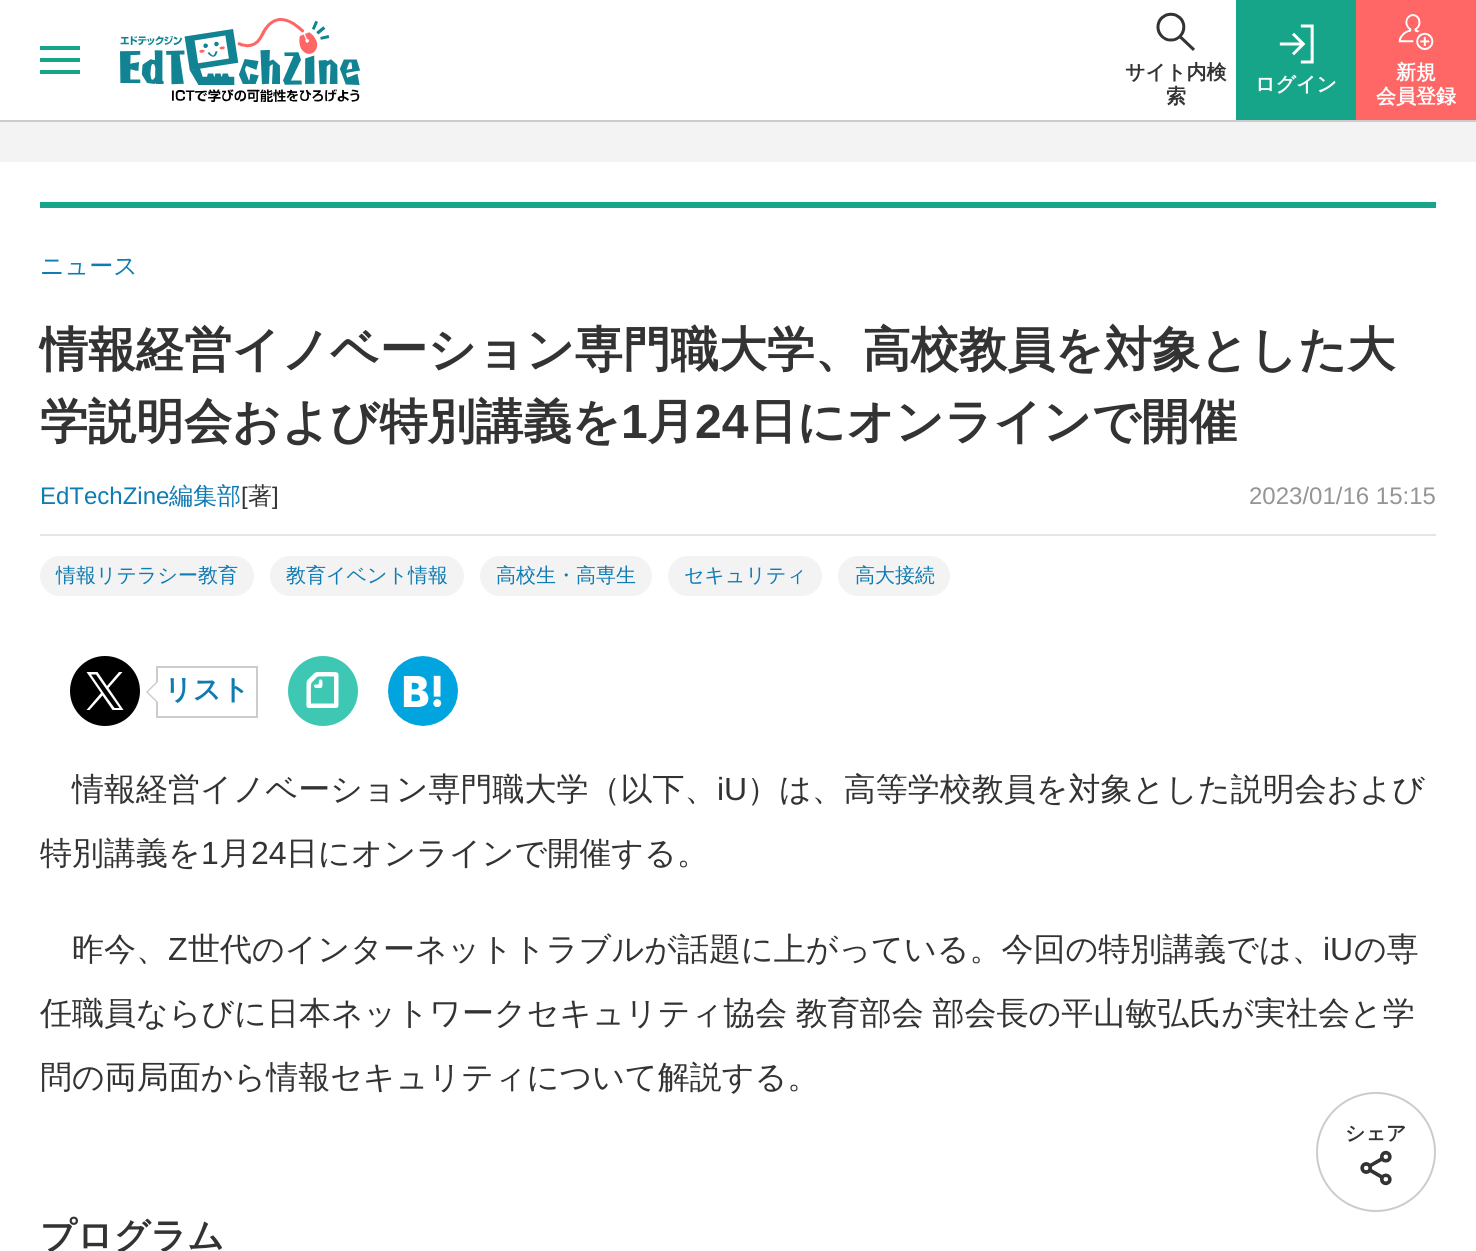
#include <cairo.h>
#include <math.h>
#include <stddef.h>

typedef struct { const char *family; double size; int italic, bold; unsigned color; } style_t;
static cairo_t *ctx;

static void ink(unsigned color) {
    cairo_set_source_rgb(ctx, (color >> 16) / 255.0, (color >> 8 & 255) / 255.0, (color & 255) / 255.0);
}

static void write(double x, double y, const char *s, const style_t *st) {
    cairo_select_font_face(ctx, st->family, st->italic ? CAIRO_FONT_SLANT_ITALIC : CAIRO_FONT_SLANT_NORMAL,
        st->bold ? CAIRO_FONT_WEIGHT_BOLD : CAIRO_FONT_WEIGHT_NORMAL);
    cairo_set_font_size(ctx, st->size);
    ink(st->color);
    cairo_move_to(ctx, x, y);
    cairo_show_text(ctx, s);
}

static void write_spaced(double x, double y, const char *s, double letter, double word) {
    cairo_move_to(ctx, x, y);
    while (*s) {
        char ch[5] = {0};
        int n = 0;
        do ch[n++] = *s++; while ((*s & 0xC0) == 0x80);
        cairo_show_text(ctx, ch);
        cairo_rel_move_to(ctx, letter + word * (*ch == ' '), 0);
    }
}

static void block(double x, double y, double w, double h, unsigned color) {
    ink(color);
    cairo_rectangle(ctx, x, y, w, h);
    cairo_fill(ctx);
}

static void round_path(double x, double y, double w, double h, double r) {
    cairo_new_sub_path(ctx);
    cairo_arc(ctx, x + w - r, y + h - r, r, 0, M_PI / 2);
    cairo_arc(ctx, x + r, y + h - r, r, M_PI / 2, M_PI);
    cairo_arc(ctx, x + r, y + r, r, M_PI, 1.5 * M_PI);
    cairo_arc(ctx, x + w - r, y + r, r, 1.5 * M_PI, 2 * M_PI);
    cairo_close_path(ctx);
}

static void paste(const char *path, double x, double y, double w, double h) {
    cairo_surface_t *image = cairo_image_surface_create_from_png(path);
    cairo_save(ctx);
    cairo_set_source_surface(ctx, image, x, y);
    cairo_rectangle(ctx, x, y, w, h);
    cairo_fill(ctx);
    cairo_restore(ctx);
    cairo_surface_destroy(image);
}

static const style_t s1 = {"WenQuanYi Zen Hei", 20, 0, 1, 0x333333};
static const style_t s2 = {"WenQuanYi Zen Hei", 20, 0, 1, 0xffffff};
static const style_t s3 = {"WenQuanYi Zen Hei Medium", 24, 0, 0, 0x0e7bb3};
static const style_t s4 = {"WenQuanYi Zen Hei", 48, 0, 1, 0x333333};
static const style_t s5 = {"Liberation Sans", 48, 0, 1, 0x333333};
static const style_t s6 = {"Liberation Sans", 24, 0, 0, 0x0e7bb3};
static const style_t s7 = {"Liberation Sans", 24, 0, 0, 0x333333};
static const style_t s8 = {"WenQuanYi Zen Hei Medium", 24, 0, 0, 0x333333};
static const style_t s9 = {"Liberation Sans", 24, 0, 0, 0x959595};
static const style_t s10 = {"WenQuanYi Zen Hei Medium", 20, 0, 0, 0x0e7bb3};
static const style_t s11 = {"WenQuanYi Zen Hei", 28, 0, 1, 0x0e7bb3};
static const style_t s12 = {"WenQuanYi Zen Hei Medium", 32, 0, 0, 0x333333};
static const style_t s13 = {"Liberation Sans", 32, 0, 0, 0x333333};
static const style_t s14 = {"WenQuanYi Zen Hei", 36, 0, 1, 0x333333};

int main(void) {
    cairo_surface_t *surface = cairo_image_surface_create(CAIRO_FORMAT_RGB24, 1476, 1251);
    ctx = cairo_create(surface);
    cairo_font_options_t *options = cairo_font_options_create();
    cairo_font_options_set_hint_metrics(options, CAIRO_HINT_METRICS_OFF);
    cairo_font_options_set_hint_style(options, CAIRO_HINT_STYLE_NONE);
    cairo_set_font_options(ctx, options);
    cairo_set_miter_limit(ctx, 4);
    ink(0xffffff);
    cairo_paint(ctx);
    block(0, 120, 1476, 2, 0xcccccc);
    block(40, 58, 40, 4, 0x16a588);
    block(40, 46, 40, 4, 0x16a588);
    block(40, 70, 40, 4, 0x16a588);
    paste("pic1.png", 120, 18, 240, 84);
    paste("pic2.png", 1156, 12, 39, 39);
    write(1125, 79, "サイト内検", &s1);
    write(1166, 103, "索", &s1);
    block(1236, 0, 120, 120, 0x16a588);
    paste("pic3.png", 1279, 24, 35, 40);
    write(1255, 91, "ログイン", &s2);
    block(1356, 0, 120, 120, 0xff6666);
    paste("pic4.png", 1398, 14, 36, 36);
    write(1396, 79, "新規", &s2);
    write(1376, 103, "会員登録", &s2);
    block(0, 122, 1476, 40, 0xf3f3f3);
    block(40, 202, 1396, 6, 0x16a588);
    write(40, 274, "ニュース", &s3);
    write(40, 366, "情報経営イノベーション専門職大学、高校教員を対象とした大", &s4);
    write(40, 438, "学説明会および特別講義を", &s4);
    write(621, 438, "1", &s5);
    write(647, 438, "月", &s4);
    write(695, 438, "24", &s5);
    write(749, 438, "日にオンラインで開催", &s4);
    write(40, 504, "EdTechZine", &s6);
    write(169, 504, "編集部", &s3);
    write(241, 504, "[", &s7);
    write(248, 504, "著", &s8);
    write(272, 504, "]", &s7);
    write(1249, 504, "2023/01/16 15:15", &s9);
    block(40, 534, 1396, 2, 0xe5e5e5);
    ink(0xf3f3f3);
    round_path(40, 556, 214, 40, 20);
    cairo_fill(ctx);
    write(56, 582, "情報リテラシー教育", &s10);
    ink(0xf3f3f3);
    round_path(270, 556, 194, 40, 20);
    cairo_fill(ctx);
    write(286, 582, "教育イベント情報", &s10);
    ink(0xf3f3f3);
    round_path(480, 556, 172, 40, 20);
    cairo_fill(ctx);
    write(496, 582, "高校生・高専生", &s10);
    ink(0xf3f3f3);
    round_path(668, 556, 154, 40, 20);
    cairo_fill(ctx);
    write(684, 582, "セキュリティ", &s10);
    ink(0xf3f3f3);
    round_path(838, 556, 112, 40, 20);
    cairo_fill(ctx);
    write(855, 582, "高大接続", &s10);
    ink(0x000000);
    cairo_new_path(ctx);
    cairo_arc(ctx, 105, 691, 35, 0, 2 * M_PI);
    cairo_fill(ctx);
    ink(0xffffff);
    cairo_new_path(ctx);
    cairo_move_to(ctx, 108.5, 688);
    cairo_line_to(ctx, 122.5, 672);
    cairo_line_to(ctx, 119, 672);
    cairo_line_to(ctx, 107, 686);
    cairo_line_to(ctx, 97.5, 672);
    cairo_line_to(ctx, 86.5, 672);
    cairo_line_to(ctx, 101, 693);
    cairo_line_to(ctx, 86.5, 710);
    cairo_line_to(ctx, 89.5, 710);
    cairo_line_to(ctx, 102.5, 695.5);
    cairo_line_to(ctx, 112.5, 710);
    cairo_line_to(ctx, 123.5, 710);
    cairo_close_path(ctx);
    cairo_move_to(ctx, 104, 693.5);
    cairo_line_to(ctx, 91, 674.5);
    cairo_line_to(ctx, 96, 674.5);
    cairo_line_to(ctx, 119.5, 708);
    cairo_line_to(ctx, 114.5, 708);
    cairo_close_path(ctx);
    cairo_fill(ctx);
    cairo_rectangle(ctx, 157, 667, 100, 50);
    ink(0xcccccc);
    cairo_stroke(ctx);
    cairo_new_path(ctx);
    cairo_move_to(ctx, 158, 680);
    cairo_line_to(ctx, 158, 704);
    cairo_line_to(ctx, 146, 692);
    cairo_close_path(ctx);
    cairo_fill(ctx);
    write(164, 699, "リスト", &s11);
    ink(0xffffff);
    cairo_new_path(ctx);
    cairo_move_to(ctx, 158, 682);
    cairo_line_to(ctx, 158, 702);
    cairo_line_to(ctx, 148, 692);
    cairo_close_path(ctx);
    cairo_fill(ctx);
    ink(0x3ec8b3);
    cairo_arc(ctx, 323, 691, 35, 0, 2 * M_PI);
    cairo_fill(ctx);
    ink(0xffffff);
    cairo_set_fill_rule(ctx, CAIRO_FILL_RULE_EVEN_ODD);
    cairo_new_path(ctx);
    cairo_move_to(ctx, 309, 708);
    cairo_line_to(ctx, 331.5, 708);
    cairo_curve_to(ctx, 339, 708, 338.5, 708.5, 338.5, 700.5);
    cairo_line_to(ctx, 338.5, 680);
    cairo_curve_to(ctx, 338.5, 673, 339.5, 672, 332.5, 672);
    cairo_line_to(ctx, 317.5, 672);
    cairo_curve_to(ctx, 315, 672, 313.5, 674, 312, 675.5);
    cairo_curve_to(ctx, 306.5, 681, 306.5, 679.5, 306.5, 686.5);
    cairo_line_to(ctx, 306.5, 701.5);
    cairo_curve_to(ctx, 306.5, 704, 305.5, 708, 309, 708);
    cairo_close_path(ctx);
    cairo_move_to(ctx, 317, 677);
    cairo_curve_to(ctx, 318, 676, 332, 676.5, 334, 676.5);
    cairo_line_to(ctx, 334, 703.5);
    cairo_line_to(ctx, 311, 703.5);
    cairo_curve_to(ctx, 311, 701, 310.5, 683.5, 311.5, 683);
    cairo_close_path(ctx);
    cairo_move_to(ctx, 316, 688);
    cairo_curve_to(ctx, 321.5, 688, 322.5, 689, 322.5, 683);
    cairo_curve_to(ctx, 322.5, 682, 322.5, 679, 320, 679.5);
    cairo_curve_to(ctx, 319.5, 679.5, 319, 680, 319, 680.5);
    cairo_line_to(ctx, 318.5, 684.5);
    cairo_line_to(ctx, 315, 684.5);
    cairo_curve_to(ctx, 313, 685, 314, 688, 316, 688);
    cairo_close_path(ctx);
    cairo_fill(ctx);
    paste("pic5.png", 388, 656, 70, 70);
    write(72, 800, "情報経営イノベーション専門職大学（以下、", &s12);
    write(717, 800, "iU", &s13);
    write(747, 800, "）は、高等学校教員を対象とした説明会および", &s12);
    write(40, 864, "特別講義を", &s12);
    write(201, 864, "1", &s13);
    write(219, 864, "月", &s12);
    write(251, 864, "24", &s13);
    write(286, 864, "日にオンラインで開催する。", &s12);
    write(72, 960, "昨今、", &s12);
    write(168, 960, "Z", &s13);
    write(188, 960, "世代のインターネットトラブルが話題に上がっている。今回の特別講義では、", &s12);
    write(1323, 960, "iU", &s13);
    write(1354, 960, "の専", &s12);
    write_spaced(40, 1024, "任職員ならびに日本ネットワークセキュリティ協会 教育部会 部会長の平山敏弘氏が実社会と学", 0, -1);
    write(40, 1088, "問の両局面から情報セキュリティについて解説する。", &s12);
    write(40, 1248, "プログラム", &s14);
    cairo_new_path(ctx);
    cairo_arc(ctx, 1376, 1152, 59, 0, 2 * M_PI);
    ink(0xcccccc);
    cairo_stroke(ctx);
    write(1345, 1140, "シェア", &s1);
    paste("pic6.png", 1360, 1150, 32, 36);
    cairo_surface_write_to_png(surface, "screenshot.png");
    cairo_font_options_destroy(options);
    cairo_destroy(ctx);
    cairo_surface_destroy(surface);
    return 0;
}
